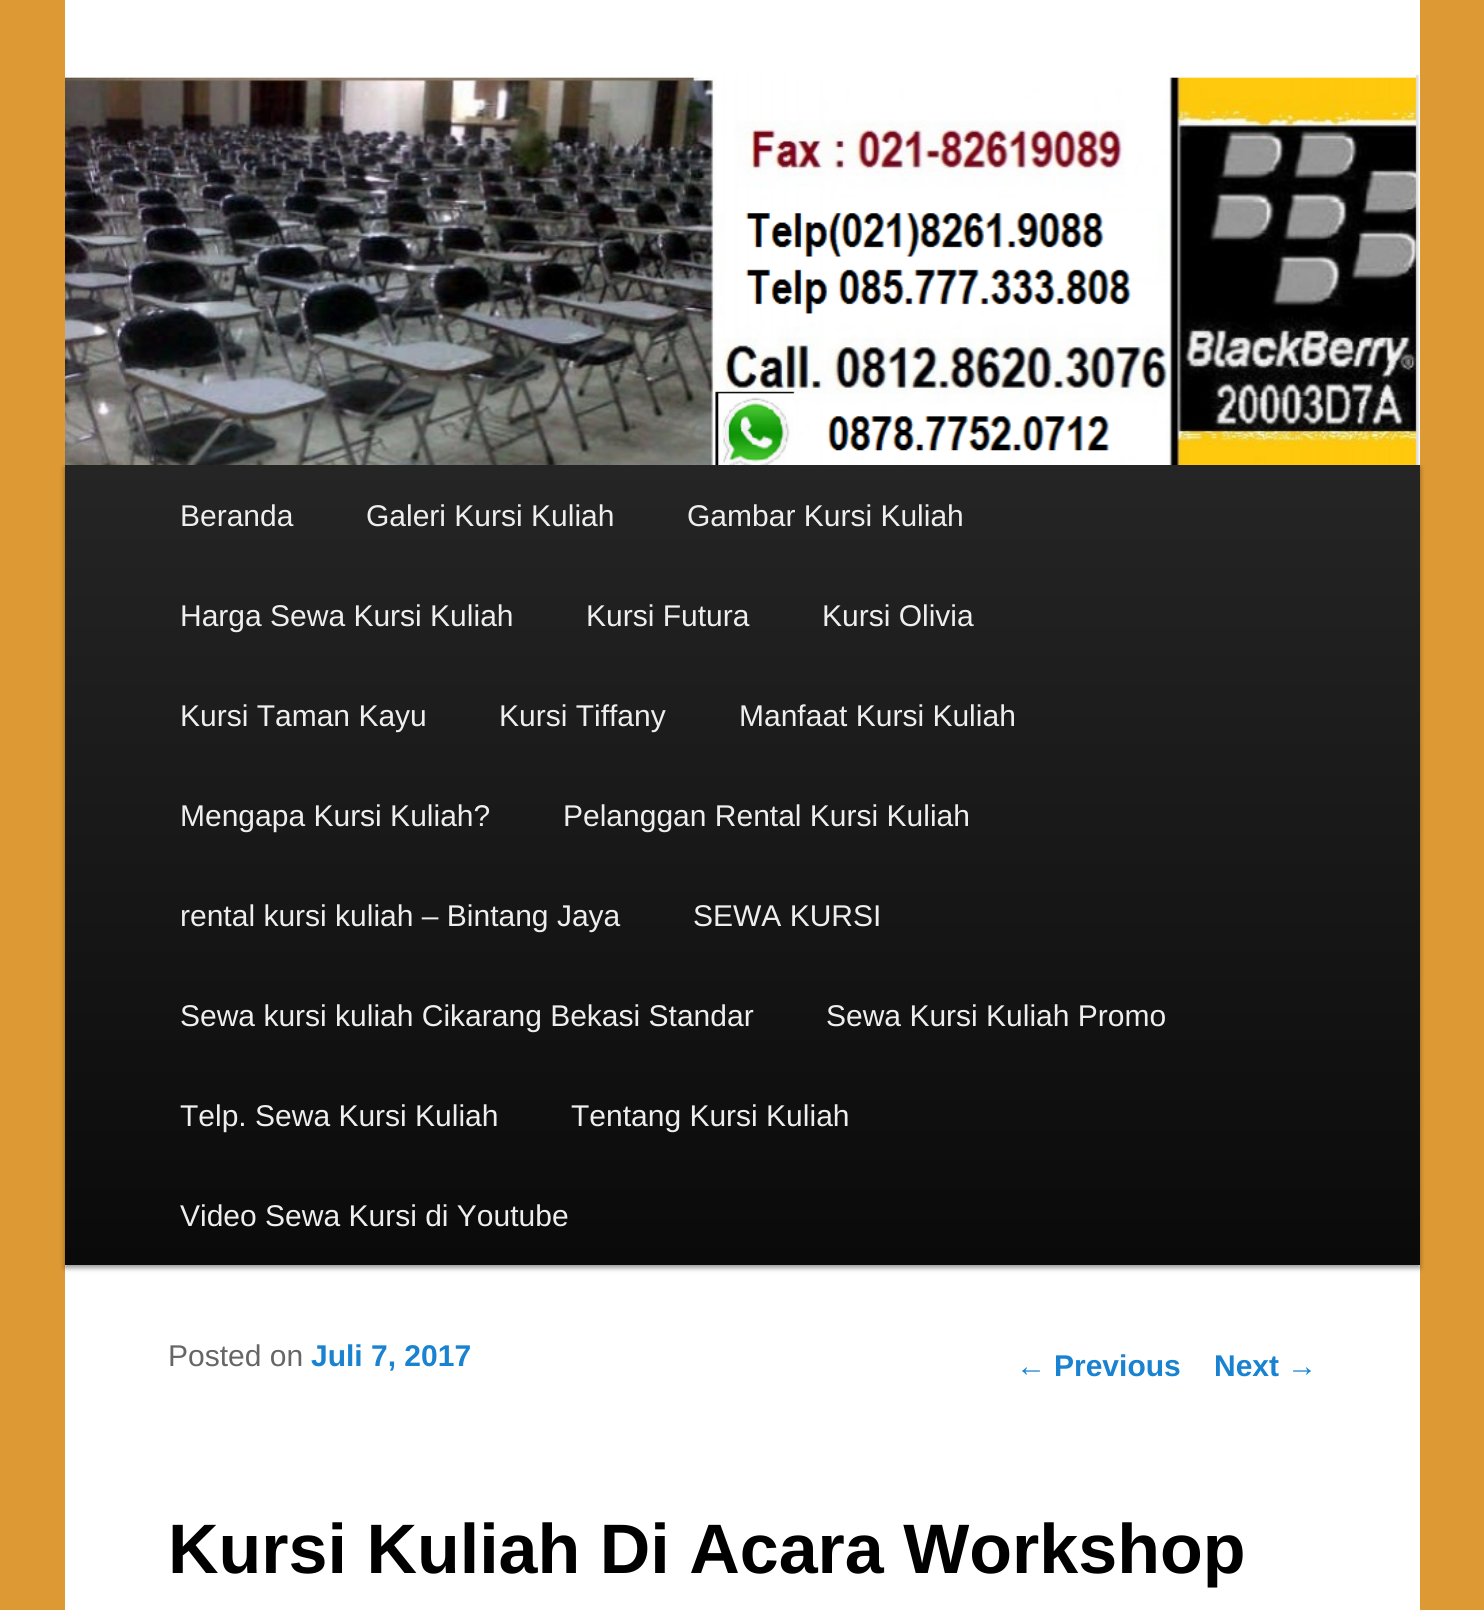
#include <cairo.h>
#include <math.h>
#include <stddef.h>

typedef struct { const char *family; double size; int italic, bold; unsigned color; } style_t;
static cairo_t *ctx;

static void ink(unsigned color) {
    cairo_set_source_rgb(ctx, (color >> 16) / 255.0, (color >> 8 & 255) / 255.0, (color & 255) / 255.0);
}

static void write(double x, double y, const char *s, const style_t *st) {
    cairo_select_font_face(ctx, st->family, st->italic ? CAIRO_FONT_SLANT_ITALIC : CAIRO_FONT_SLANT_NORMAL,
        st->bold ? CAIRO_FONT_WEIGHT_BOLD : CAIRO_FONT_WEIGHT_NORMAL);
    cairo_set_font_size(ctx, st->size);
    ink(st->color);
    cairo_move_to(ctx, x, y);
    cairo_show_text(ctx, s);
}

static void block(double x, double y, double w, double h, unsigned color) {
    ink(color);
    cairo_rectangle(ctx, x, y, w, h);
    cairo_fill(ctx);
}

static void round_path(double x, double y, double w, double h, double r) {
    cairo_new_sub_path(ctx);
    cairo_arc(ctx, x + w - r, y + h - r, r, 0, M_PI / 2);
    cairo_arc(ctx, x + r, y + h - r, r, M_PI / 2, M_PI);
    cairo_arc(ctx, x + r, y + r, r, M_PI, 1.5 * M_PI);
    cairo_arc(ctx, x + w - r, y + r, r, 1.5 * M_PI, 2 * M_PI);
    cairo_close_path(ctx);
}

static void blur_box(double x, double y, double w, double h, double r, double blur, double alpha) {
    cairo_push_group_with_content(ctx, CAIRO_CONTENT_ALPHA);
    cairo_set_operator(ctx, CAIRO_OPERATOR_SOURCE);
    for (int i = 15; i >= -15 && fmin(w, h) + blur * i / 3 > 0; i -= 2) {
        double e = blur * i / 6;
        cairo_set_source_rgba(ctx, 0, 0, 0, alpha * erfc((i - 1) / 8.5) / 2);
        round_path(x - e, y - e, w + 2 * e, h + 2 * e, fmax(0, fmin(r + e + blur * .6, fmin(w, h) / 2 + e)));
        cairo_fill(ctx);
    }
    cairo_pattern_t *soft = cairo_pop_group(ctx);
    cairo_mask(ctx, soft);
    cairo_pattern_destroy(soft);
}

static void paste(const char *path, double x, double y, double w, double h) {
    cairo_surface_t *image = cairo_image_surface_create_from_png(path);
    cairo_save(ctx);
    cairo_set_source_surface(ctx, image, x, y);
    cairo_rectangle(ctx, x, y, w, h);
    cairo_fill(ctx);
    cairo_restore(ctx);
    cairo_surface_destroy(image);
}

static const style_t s1 = {"Liberation Sans", 30, 0, 0, 0xeeeeee};
static const style_t s2 = {"Liberation Sans", 30, 0, 0, 0x666666};
static const style_t s3 = {"Liberation Sans", 30, 0, 1, 0x1982d1};
static const style_t s4 = {"Liberation Sans", 70, 0, 1, 0x000000};
static const style_t s5 = {"Liberation Sans", 30, 0, 0, 0x1982d1};

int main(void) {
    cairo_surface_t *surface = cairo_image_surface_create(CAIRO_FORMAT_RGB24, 1484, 1610);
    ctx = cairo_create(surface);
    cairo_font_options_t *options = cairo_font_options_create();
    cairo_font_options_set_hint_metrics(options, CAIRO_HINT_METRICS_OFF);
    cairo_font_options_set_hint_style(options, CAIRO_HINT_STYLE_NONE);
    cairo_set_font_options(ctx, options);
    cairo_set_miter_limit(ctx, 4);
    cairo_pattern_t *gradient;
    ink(0xdd9933);
    cairo_paint(ctx);
    block(65, 0, 1355, 1610, 0xffffff);
    ink(0x000000);
    blur_box(65, 468, 1355, 800, 0, 2.5, 0.4);
    paste("pic1.png", 65, 75, 1354, 390);
    gradient = cairo_pattern_create_linear(743, 465, 743, 1265);
    cairo_pattern_add_color_stop_rgba(gradient, 0, 0.145, 0.145, 0.145, 1);
    cairo_pattern_add_color_stop_rgba(gradient, 1, 0.039, 0.039, 0.039, 1);
    cairo_set_source(ctx, gradient);
    cairo_pattern_destroy(gradient);
    cairo_rectangle(ctx, 65, 465, 1355, 800);
    cairo_fill(ctx);
    write(180, 526, "Beranda", &s1);
    write(366, 526, "Galeri Kursi Kuliah", &s1);
    write(687, 526, "Gambar Kursi Kuliah", &s1);
    write(180, 626, "Harga Sewa Kursi Kuliah", &s1);
    write(586, 626, "Kursi Futura", &s1);
    write(822, 626, "Kursi Olivia", &s1);
    write(180, 726, "Kursi Taman Kayu", &s1);
    write(499, 726, "Kursi Tiffany", &s1);
    write(739, 726, "Manfaat Kursi Kuliah", &s1);
    write(180, 826, "Mengapa Kursi Kuliah?", &s1);
    write(563, 826, "Pelanggan Rental Kursi Kuliah", &s1);
    write(180, 926, "rental kursi kuliah – Bintang Jaya", &s1);
    write(693, 926, "SEWA KURSI", &s1);
    write(180, 1026, "Sewa kursi kuliah Cikarang Bekasi Standar", &s1);
    write(826, 1026, "Sewa Kursi Kuliah Promo", &s1);
    write(180, 1126, "Telp. Sewa Kursi Kuliah", &s1);
    write(571, 1126, "Tentang Kursi Kuliah", &s1);
    write(180, 1226, "Video Sewa Kursi di Youtube", &s1);
    write(168, 1366, "Posted on", &s2);
    write(311, 1366, "Juli 7, 2017", &s3);
    write(168, 1573, "Kursi Kuliah Di Acara Workshop", &s4);
    write(1016, 1376, "←", &s5);
    write(1054, 1376, "Previous", &s3);
    write(1214, 1376, "Next", &s3);
    write(1287, 1376, "→", &s5);
    cairo_surface_write_to_png(surface, "screenshot.png");
    cairo_font_options_destroy(options);
    cairo_destroy(ctx);
    cairo_surface_destroy(surface);
    return 0;
}
